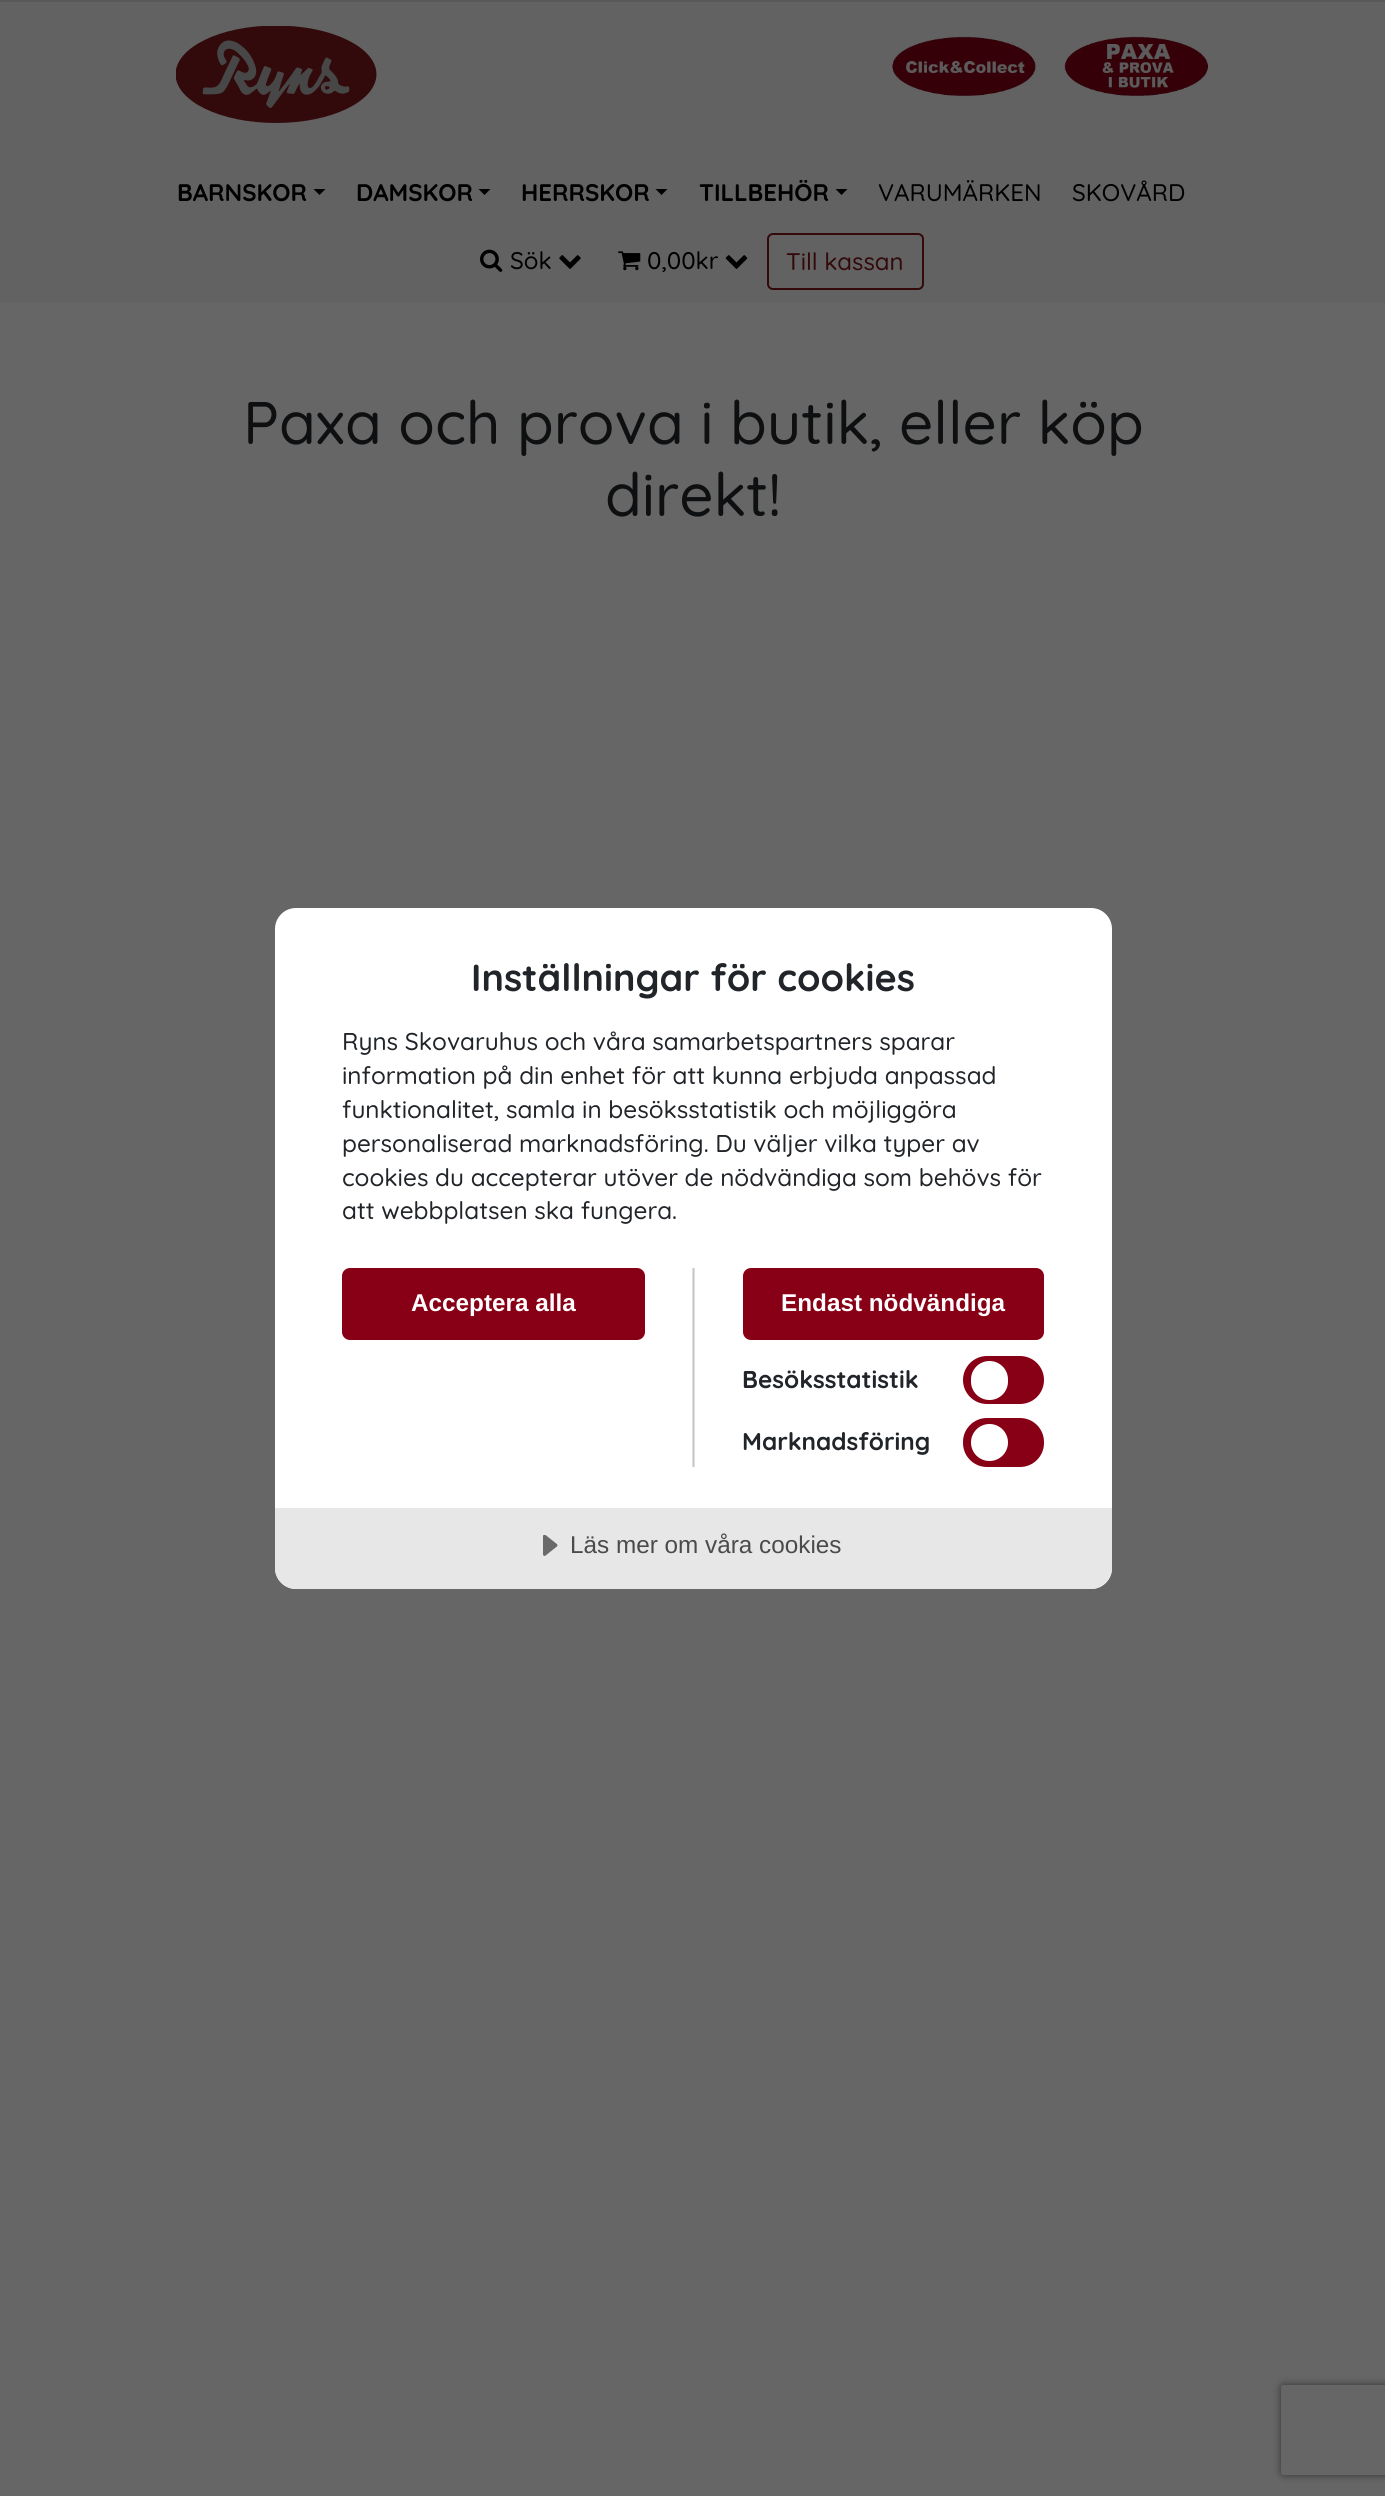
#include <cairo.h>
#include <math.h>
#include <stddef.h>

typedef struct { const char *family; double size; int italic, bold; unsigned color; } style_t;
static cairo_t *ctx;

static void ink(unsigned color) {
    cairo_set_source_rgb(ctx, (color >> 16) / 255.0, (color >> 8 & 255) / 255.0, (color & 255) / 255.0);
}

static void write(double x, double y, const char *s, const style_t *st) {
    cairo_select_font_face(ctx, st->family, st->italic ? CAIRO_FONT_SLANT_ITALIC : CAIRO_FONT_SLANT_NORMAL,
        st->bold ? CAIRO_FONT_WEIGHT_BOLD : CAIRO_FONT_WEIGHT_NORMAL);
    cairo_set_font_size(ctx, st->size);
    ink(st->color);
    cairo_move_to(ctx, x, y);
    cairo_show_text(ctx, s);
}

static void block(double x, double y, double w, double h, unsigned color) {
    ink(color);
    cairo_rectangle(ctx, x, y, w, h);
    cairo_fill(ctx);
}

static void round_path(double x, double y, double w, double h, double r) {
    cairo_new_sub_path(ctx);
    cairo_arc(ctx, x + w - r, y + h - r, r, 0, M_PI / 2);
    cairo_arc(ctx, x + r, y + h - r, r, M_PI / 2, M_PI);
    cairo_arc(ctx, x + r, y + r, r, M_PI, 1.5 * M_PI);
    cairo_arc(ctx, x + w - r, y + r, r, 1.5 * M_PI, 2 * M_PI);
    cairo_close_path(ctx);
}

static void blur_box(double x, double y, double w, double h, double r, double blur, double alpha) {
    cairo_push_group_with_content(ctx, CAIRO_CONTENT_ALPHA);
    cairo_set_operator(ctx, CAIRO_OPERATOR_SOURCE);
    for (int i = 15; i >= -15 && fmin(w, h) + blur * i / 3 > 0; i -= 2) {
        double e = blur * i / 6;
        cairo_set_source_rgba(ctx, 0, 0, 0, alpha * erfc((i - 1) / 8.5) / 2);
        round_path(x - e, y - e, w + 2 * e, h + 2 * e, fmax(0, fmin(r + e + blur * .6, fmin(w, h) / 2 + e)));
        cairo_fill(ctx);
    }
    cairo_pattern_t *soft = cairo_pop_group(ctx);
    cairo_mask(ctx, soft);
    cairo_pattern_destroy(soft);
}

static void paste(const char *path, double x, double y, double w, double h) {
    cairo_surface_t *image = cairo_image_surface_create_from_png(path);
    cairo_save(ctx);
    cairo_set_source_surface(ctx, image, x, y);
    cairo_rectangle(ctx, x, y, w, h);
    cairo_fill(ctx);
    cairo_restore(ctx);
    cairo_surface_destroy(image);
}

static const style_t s1 = {"Quicksand", 24, 0, 1, 0x000000};
static const style_t s2 = {"Quicksand Medium", 24, 0, 0, 0x000000};
static const style_t s3 = {"Quicksand Medium", 24, 0, 0, 0x33090a};
static const style_t s4 = {"Quicksand Medium", 60, 0, 0, 0x0d0f10};
static const style_t s5 = {"Quicksand", 37.75, 0, 1, 0x212529};
static const style_t s6 = {"Quicksand Medium", 24.3, 0, 0, 0x212529};
static const style_t s7 = {"Liberation Sans", 24.3, 0, 1, 0xffffff};
static const style_t s8 = {"Quicksand", 24.3, 0, 1, 0x212529};
static const style_t s9 = {"Liberation Sans", 24.3, 0, 0, 0x4b4b4b};

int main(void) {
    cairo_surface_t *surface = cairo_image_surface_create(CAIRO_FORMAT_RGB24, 1385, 2496);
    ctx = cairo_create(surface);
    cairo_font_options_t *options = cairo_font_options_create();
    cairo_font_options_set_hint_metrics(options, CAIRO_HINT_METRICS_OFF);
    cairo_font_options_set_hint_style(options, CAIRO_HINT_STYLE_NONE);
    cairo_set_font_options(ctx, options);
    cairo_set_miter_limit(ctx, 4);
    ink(0x666666);
    cairo_paint(ctx);
    block(0, 2, 1385, 300, 0x626262);
    block(0, 0, 1385, 2, 0x585858);
    paste("pic1.png", 176, 26, 201, 97);
    paste("pic2.png", 890, 36, 146, 61);
    paste("pic3.png", 1063, 36, 147, 61);
    write(177, 201, "BARNSKOR", &s1);
    cairo_new_path(ctx);
    cairo_move_to(ctx, 313.5, 189);
    cairo_line_to(ctx, 325.5, 189);
    cairo_line_to(ctx, 319.5, 195);
    cairo_close_path(ctx);
    cairo_fill(ctx);
    write(356, 201, "DAMSKOR", &s1);
    cairo_new_path(ctx);
    cairo_move_to(ctx, 478.5, 189);
    cairo_line_to(ctx, 490.5, 189);
    cairo_line_to(ctx, 484.5, 195);
    cairo_close_path(ctx);
    cairo_fill(ctx);
    write(521, 201, "HERRSKOR", &s1);
    cairo_new_path(ctx);
    cairo_move_to(ctx, 655.5, 189);
    cairo_line_to(ctx, 667.5, 189);
    cairo_line_to(ctx, 661.5, 195);
    cairo_close_path(ctx);
    cairo_fill(ctx);
    write(699, 201, "TILLBEHÖR", &s1);
    cairo_new_path(ctx);
    cairo_move_to(ctx, 835.5, 189);
    cairo_line_to(ctx, 847.5, 189);
    cairo_line_to(ctx, 841.5, 195);
    cairo_close_path(ctx);
    cairo_fill(ctx);
    write(878, 201, "VARUMÄRKEN", &s2);
    write(1072, 201, "SKOVÅRD", &s2);
    paste("pic4.png", 480, 249, 23, 23);
    write(510, 269, "Sök", &s2);
    paste("pic5.png", 559, 255, 22, 14);
    paste("pic6.png", 618, 251, 23, 20);
    write(647, 269, "0,00kr", &s2);
    paste("pic7.png", 725, 255, 23, 14);
    round_path(768, 234, 155, 55, 5);
    ink(0x33090a);
    cairo_stroke(ctx);
    write(786, 270, "Till kassan", &s3);
    write(243, 444, "Paxa och prova i butik, eller köp", &s4);
    write(605, 516, "direkt!", &s4);
    ink(0xffffff);
    round_path(275, 908, 837, 681, 21);
    cairo_fill(ctx);
    block(694, 1268, 1, 199, 0xe0e0e0);
    write(471, 991, "Inställningar för cookies", &s5);
    write(342, 1050, "Ryns Skovaruhus och våra samarbetspartners sparar", &s6);
    write(342, 1084, "information på din enhet för att kunna erbjuda anpassad", &s6);
    write(342, 1118, "funktionalitet, samla in besöksstatistik och möjliggöra", &s6);
    write(342, 1152, "personaliserad marknadsföring. Du väljer vilka typer av", &s6);
    write(342, 1186, "cookies du accepterar utöver de nödvändiga som behövs för", &s6);
    write(342, 1219, "att webbplatsen ska fungera.", &s6);
    block(692, 1268, 1, 199, 0xe0e0e0);
    block(693, 1268, 1, 199, 0xc5c5c5);
    ink(0x880016);
    round_path(342, 1268, 303, 72, 8);
    cairo_fill(ctx);
    write(411, 1311, "Acceptera alla", &s7);
    ink(0x880016);
    round_path(743, 1268, 301, 72, 8);
    cairo_fill(ctx);
    write(781, 1311, "Endast nödvändiga", &s7);
    write(742, 1388, "Besöksstatistik", &s8);
    ink(0x880016);
    round_path(963, 1356, 81, 48, 24);
    cairo_fill(ctx);
    ink(0xffffff);
    round_path(971, 1361, 37, 39, 18.5);
    cairo_fill(ctx);
    write(742, 1450, "Marknadsföring", &s8);
    ink(0x880016);
    round_path(963, 1418, 81, 49, 24);
    cairo_fill(ctx);
    ink(0xffffff);
    cairo_arc(ctx, 989.5, 1442.5, 18.5, 0, 2 * M_PI);
    cairo_fill(ctx);
    ink(0xe7e7e7);
    cairo_new_path(ctx);
    cairo_move_to(ctx, 275, 1508);
    cairo_line_to(ctx, 1112, 1508);
    cairo_line_to(ctx, 1112, 1568);
    cairo_curve_to(ctx, 1112, 1579.5, 1102.5, 1589, 1091, 1589);
    cairo_line_to(ctx, 296, 1589);
    cairo_curve_to(ctx, 284.5, 1589, 275, 1579.5, 275, 1568);
    cairo_close_path(ctx);
    cairo_fill(ctx);
    paste("pic8.png", 543, 1535, 15, 21);
    write(570, 1553, "Läs mer om våra cookies", &s9);
    cairo_save(ctx);
    cairo_set_fill_rule(ctx, CAIRO_FILL_RULE_EVEN_ODD);
    cairo_new_path(ctx);
    cairo_move_to(ctx, 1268, 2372);
    cairo_line_to(ctx, 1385, 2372);
    cairo_line_to(ctx, 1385, 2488);
    cairo_line_to(ctx, 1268, 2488);
    cairo_close_path(ctx);
    cairo_move_to(ctx, 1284, 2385);
    cairo_line_to(ctx, 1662, 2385);
    cairo_curve_to(ctx, 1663.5, 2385, 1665, 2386.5, 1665, 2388);
    cairo_line_to(ctx, 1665, 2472);
    cairo_curve_to(ctx, 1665, 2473.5, 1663.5, 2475, 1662, 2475);
    cairo_line_to(ctx, 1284, 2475);
    cairo_curve_to(ctx, 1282.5, 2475, 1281, 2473.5, 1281, 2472);
    cairo_line_to(ctx, 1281, 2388);
    cairo_curve_to(ctx, 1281, 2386.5, 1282.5, 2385, 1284, 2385);
    cairo_close_path(ctx);
    cairo_clip(ctx);
    ink(0x333333);
    blur_box(1281, 2385, 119, 90, 3, 4, 1);
    cairo_restore(ctx);
    cairo_surface_write_to_png(surface, "screenshot.png");
    cairo_font_options_destroy(options);
    cairo_destroy(ctx);
    cairo_surface_destroy(surface);
    return 0;
}
